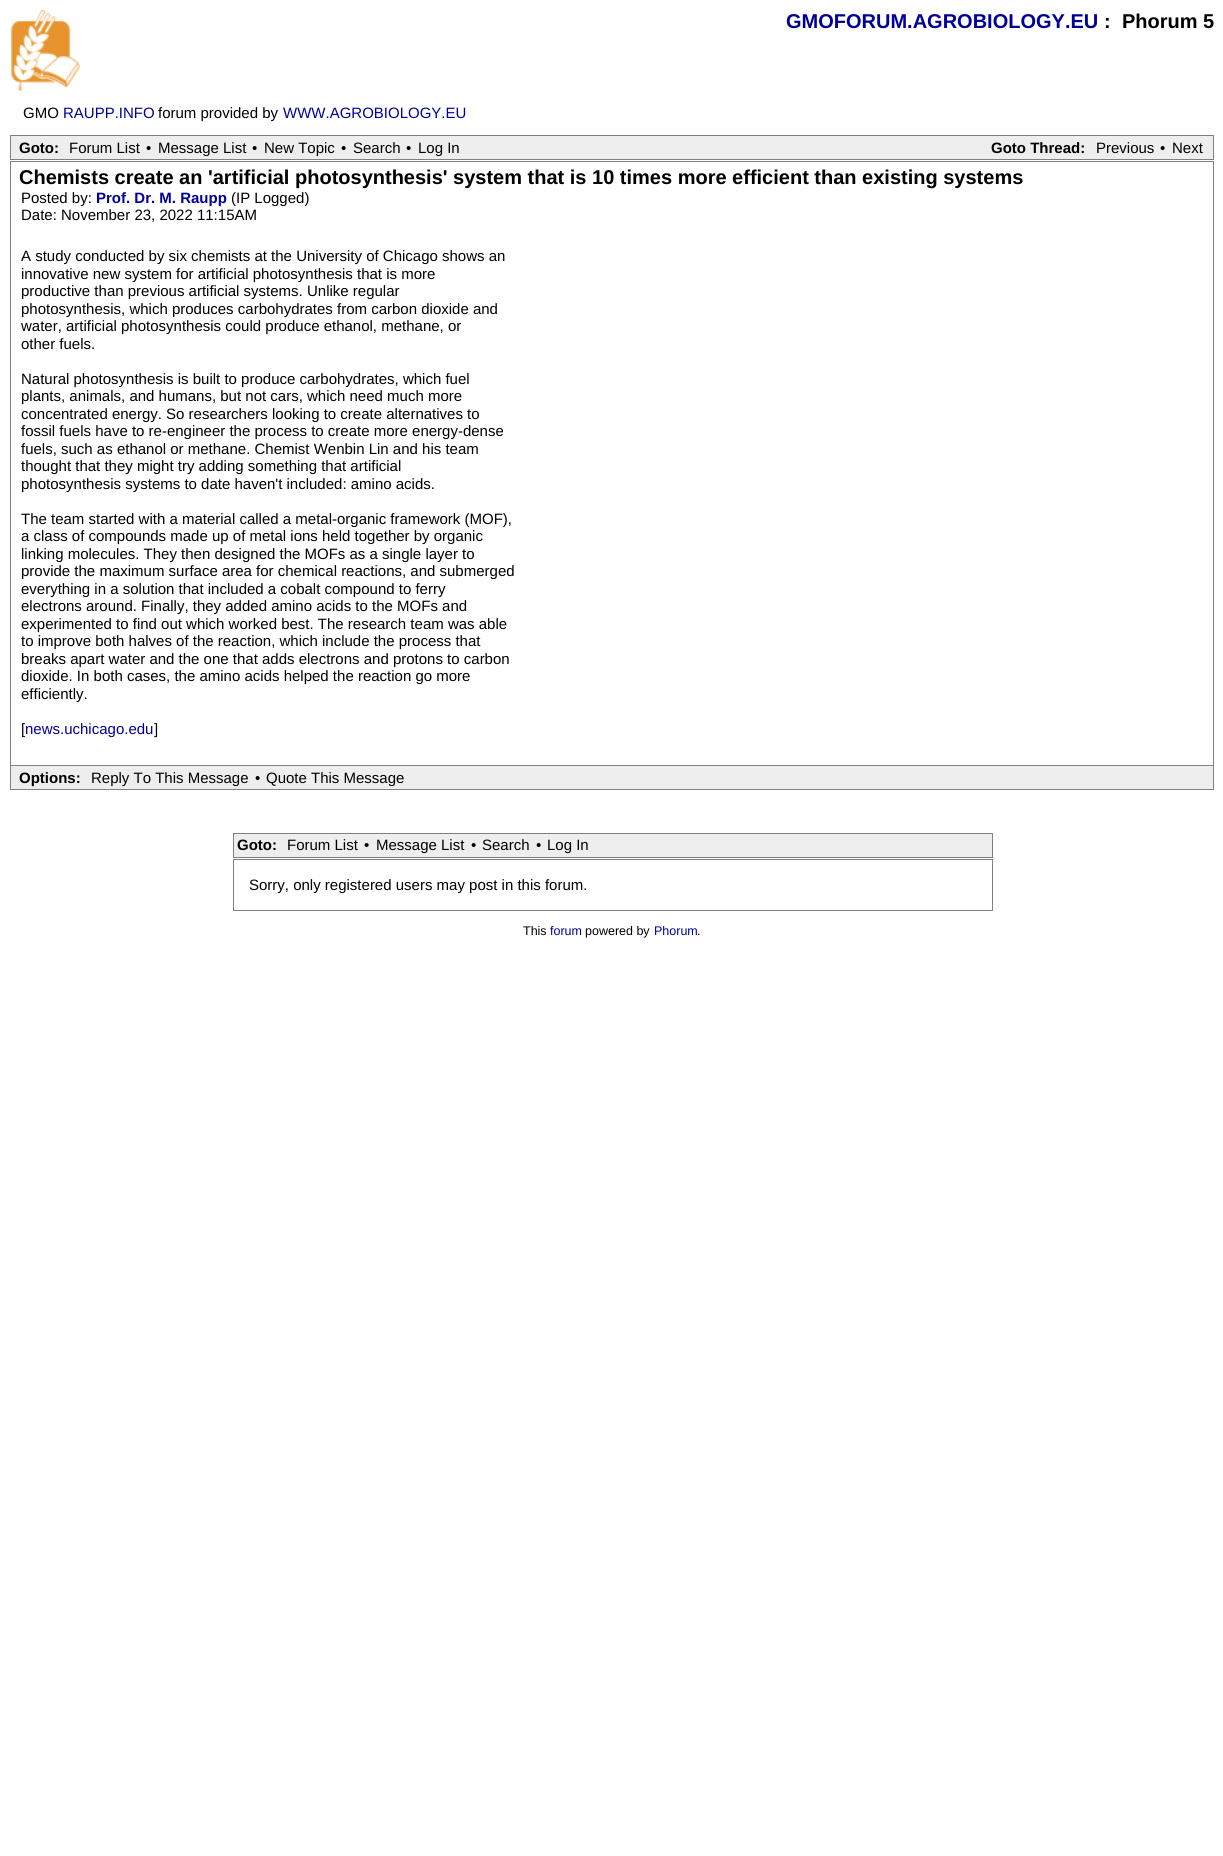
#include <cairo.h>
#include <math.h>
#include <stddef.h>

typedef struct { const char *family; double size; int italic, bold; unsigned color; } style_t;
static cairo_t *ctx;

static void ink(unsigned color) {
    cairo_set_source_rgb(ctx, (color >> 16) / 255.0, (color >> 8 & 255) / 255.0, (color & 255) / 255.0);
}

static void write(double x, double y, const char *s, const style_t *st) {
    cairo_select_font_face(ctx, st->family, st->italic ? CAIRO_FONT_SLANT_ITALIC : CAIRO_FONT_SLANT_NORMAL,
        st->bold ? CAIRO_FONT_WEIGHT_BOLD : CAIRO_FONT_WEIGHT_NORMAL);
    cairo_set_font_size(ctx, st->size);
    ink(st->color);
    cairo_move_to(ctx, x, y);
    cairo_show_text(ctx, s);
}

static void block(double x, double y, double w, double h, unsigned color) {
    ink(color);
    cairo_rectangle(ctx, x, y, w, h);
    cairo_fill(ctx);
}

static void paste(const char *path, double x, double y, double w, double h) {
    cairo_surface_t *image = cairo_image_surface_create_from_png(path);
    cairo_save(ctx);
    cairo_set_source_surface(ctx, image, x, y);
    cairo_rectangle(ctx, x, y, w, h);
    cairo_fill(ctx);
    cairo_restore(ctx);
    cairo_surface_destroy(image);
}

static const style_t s1 = {"Liberation Sans", 20, 0, 1, 0x000099};
static const style_t s2 = {"Liberation Sans", 20, 0, 1, 0x000000};
static const style_t s3 = {"Liberation Sans", 15, 0, 0, 0x000000};
static const style_t s4 = {"Liberation Sans", 15, 0, 0, 0x000099};
static const style_t s5 = {"Liberation Sans", 15, 0, 1, 0x000000};
static const style_t s6 = {"Liberation Sans", 15, 0, 1, 0x000099};
static const style_t s7 = {"Liberation Sans", 12.5, 0, 0, 0x000000};
static const style_t s8 = {"Liberation Sans", 12.5, 0, 0, 0x000099};

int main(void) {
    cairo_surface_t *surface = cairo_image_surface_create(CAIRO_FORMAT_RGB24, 1223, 1856);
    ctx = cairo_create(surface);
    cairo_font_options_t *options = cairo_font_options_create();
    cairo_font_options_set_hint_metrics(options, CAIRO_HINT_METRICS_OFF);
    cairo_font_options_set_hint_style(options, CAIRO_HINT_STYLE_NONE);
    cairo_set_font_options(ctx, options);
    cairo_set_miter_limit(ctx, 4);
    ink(0xffffff);
    cairo_paint(ctx);
    paste("pic1.png", 10, 10, 70, 82);
    write(786, 28, "GMOFORUM.AGROBIOLOGY.EU", &s1);
    write(1104, 28, ":", &s2);
    write(1122, 28, "Phorum 5", &s2);
    write(23, 118, "GMO", &s3);
    write(63, 118, "RAUPP.INFO", &s4);
    write(158, 118, "forum provided by", &s3);
    write(283, 118, "WWW.AGROBIOLOGY.EU", &s4);
    ink(0xeeeeee);
    cairo_rectangle(ctx, 10.5, 135.5, 1203, 24);
    cairo_fill_preserve(ctx);
    ink(0x808080);
    cairo_set_line_width(ctx, 1);
    cairo_stroke(ctx);
    write(19, 153, "Goto:", &s5);
    write(69, 153, "Forum List", &s3);
    write(146, 153, "•", &s3);
    write(158, 153, "Message List", &s3);
    write(252, 153, "•", &s3);
    write(264, 153, "New Topic", &s3);
    write(341, 153, "•", &s3);
    write(353, 153, "Search", &s3);
    write(406, 153, "•", &s3);
    write(418, 153, "Log In", &s3);
    write(991, 153, "Goto Thread:", &s5);
    write(1096, 153, "Previous", &s3);
    write(1160, 153, "•", &s3);
    write(1172, 153, "Next", &s3);
    cairo_rectangle(ctx, 10.5, 161.5, 1203, 604);
    ink(0x808080);
    cairo_stroke(ctx);
    write(19, 184, "Chemists create an 'artificial photosynthesis' system that is 10 times more efficient than existing systems", &s2);
    write(21, 203, "Posted by:", &s3);
    write(96, 203, "Prof. Dr. M. Raupp", &s6);
    write(231, 203, "(IP Logged)", &s3);
    write(21, 220, "Date: November 23, 2022 11:15AM", &s3);
    write(21, 261, "A study conducted by six chemists at the University of Chicago shows an", &s3);
    write(21, 279, "innovative new system for artificial photosynthesis that is more", &s3);
    write(21, 296, "productive than previous artificial systems. Unlike regular", &s3);
    write(21, 314, "photosynthesis, which produces carbohydrates from carbon dioxide and", &s3);
    write(21, 331, "water, artificial photosynthesis could produce ethanol, methane, or", &s3);
    write(21, 349, "other fuels.", &s3);
    write(21, 384, "Natural photosynthesis is built to produce carbohydrates, which fuel", &s3);
    write(21, 401, "plants, animals, and humans, but not cars, which need much more", &s3);
    write(21, 419, "concentrated energy. So researchers looking to create alternatives to", &s3);
    write(21, 436, "fossil fuels have to re-engineer the process to create more energy-dense", &s3);
    write(21, 454, "fuels, such as ethanol or methane. Chemist Wenbin Lin and his team", &s3);
    write(21, 471, "thought that they might try adding something that artificial", &s3);
    write(21, 489, "photosynthesis systems to date haven't included: amino acids.", &s3);
    write(21, 524, "The team started with a material called a metal-organic framework (MOF),", &s3);
    write(21, 541, "a class of compounds made up of metal ions held together by organic", &s3);
    write(21, 559, "linking molecules. They then designed the MOFs as a single layer to", &s3);
    write(21, 576, "provide the maximum surface area for chemical reactions, and submerged", &s3);
    write(21, 594, "everything in a solution that included a cobalt compound to ferry", &s3);
    write(21, 611, "electrons around. Finally, they added amino acids to the MOFs and", &s3);
    write(21, 629, "experimented to find out which worked best. The research team was able", &s3);
    write(21, 646, "to improve both halves of the reaction, which include the process that", &s3);
    write(21, 664, "breaks apart water and the one that adds electrons and protons to carbon", &s3);
    write(21, 681, "dioxide. In both cases, the amino acids helped the reaction go more", &s3);
    write(21, 699, "efficiently.", &s3);
    write(21, 734, "[", &s3);
    write(25, 734, "news.uchicago.edu", &s4);
    write(154, 734, "]", &s3);
    block(11, 766, 1202, 23, 0xeeeeee);
    block(1213, 766, 1, 24, 0x808080);
    block(10, 789, 1204, 1, 0x808080);
    block(10, 766, 1, 24, 0x808080);
    write(19, 783, "Options:", &s5);
    write(91, 783, "Reply To This Message", &s3);
    write(255, 783, "•", &s3);
    write(266, 783, "Quote This Message", &s3);
    ink(0xeeeeee);
    cairo_rectangle(ctx, 233.5, 833.5, 759, 24);
    cairo_fill_preserve(ctx);
    ink(0x808080);
    cairo_stroke(ctx);
    write(237, 850, "Goto:", &s5);
    write(287, 850, "Forum List", &s3);
    write(364, 850, "•", &s3);
    write(376, 850, "Message List", &s3);
    write(471, 850, "•", &s3);
    write(482, 850, "Search", &s3);
    write(536, 850, "•", &s3);
    write(547, 850, "Log In", &s3);
    cairo_rectangle(ctx, 233.5, 859.5, 759, 51);
    ink(0x808080);
    cairo_stroke(ctx);
    write(249, 890, "Sorry, only registered users may post in this forum.", &s3);
    write(523, 935, "This", &s7);
    write(550, 935, "forum", &s8);
    write(585, 935, "powered by", &s7);
    write(654, 935, "Phorum", &s8);
    write(697, 935, ".", &s7);
    cairo_surface_write_to_png(surface, "screenshot.png");
    cairo_font_options_destroy(options);
    cairo_destroy(ctx);
    cairo_surface_destroy(surface);
    return 0;
}
